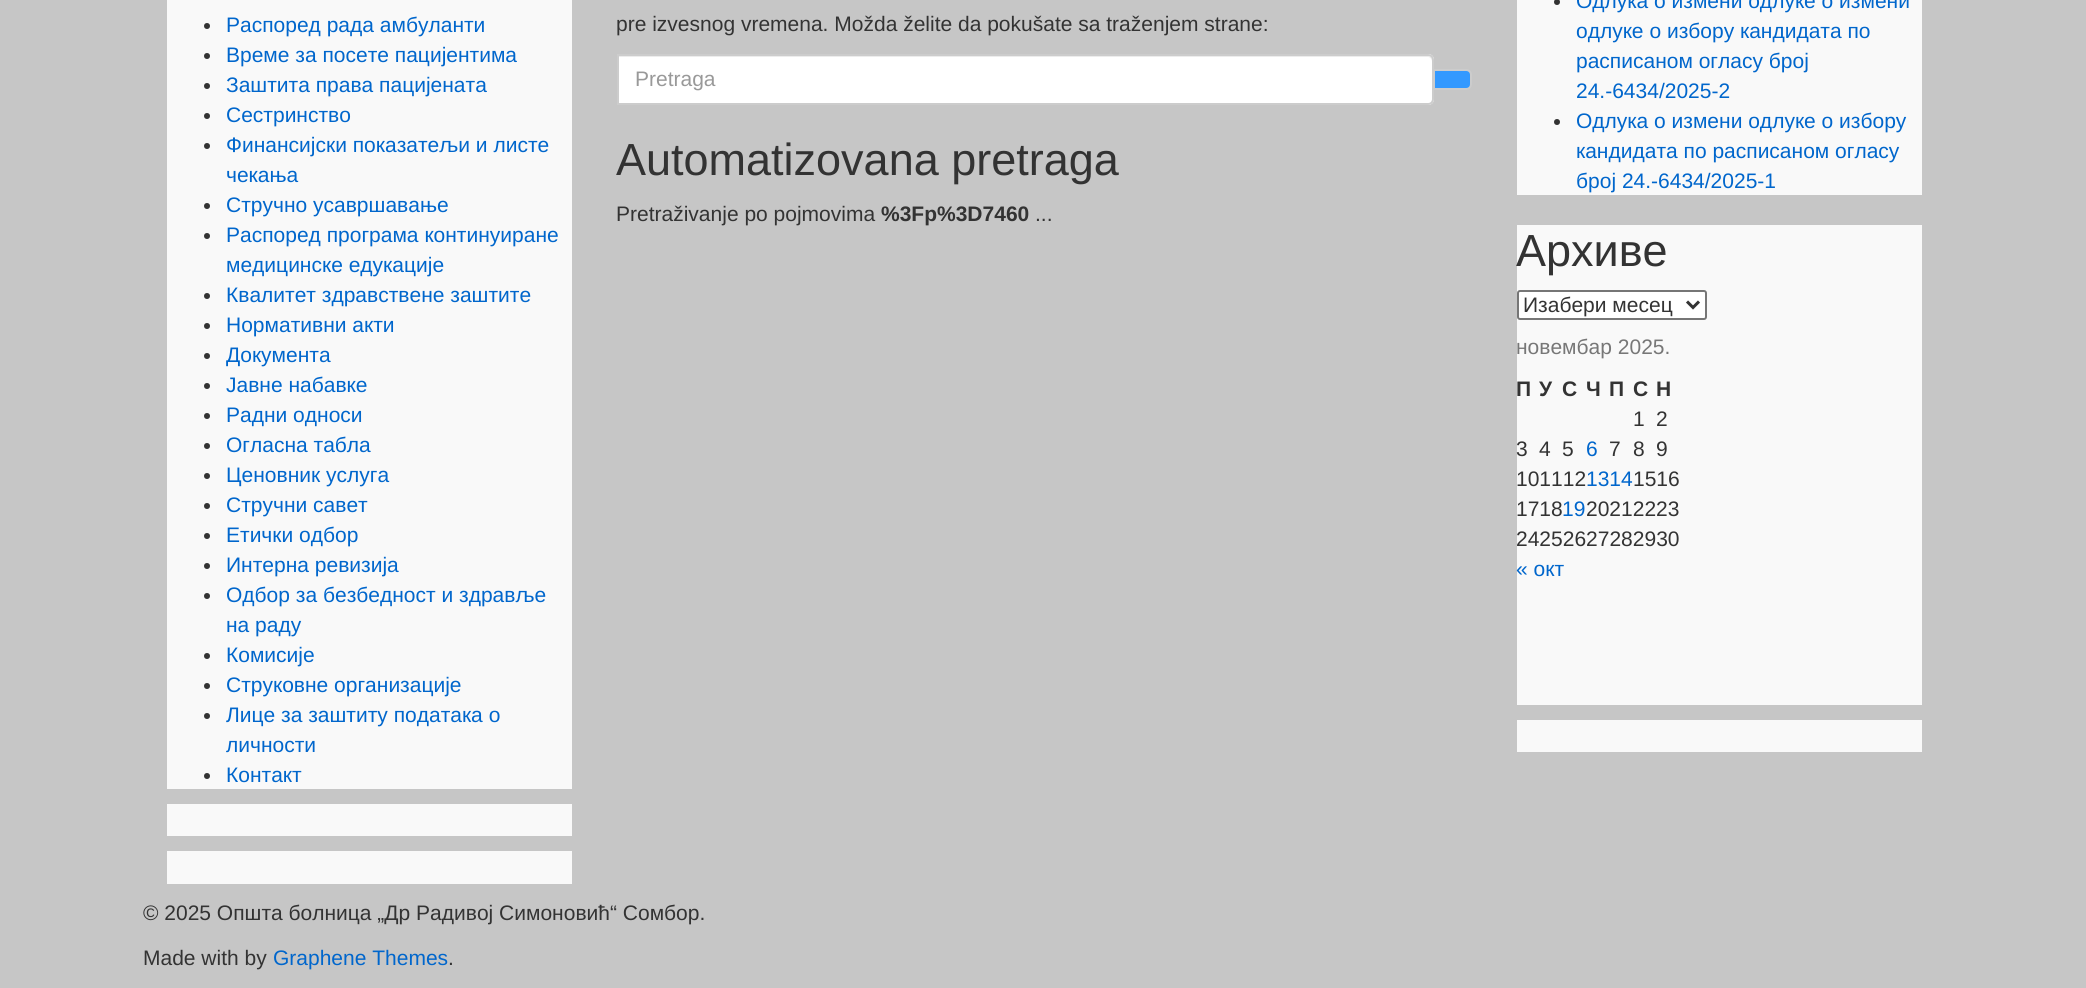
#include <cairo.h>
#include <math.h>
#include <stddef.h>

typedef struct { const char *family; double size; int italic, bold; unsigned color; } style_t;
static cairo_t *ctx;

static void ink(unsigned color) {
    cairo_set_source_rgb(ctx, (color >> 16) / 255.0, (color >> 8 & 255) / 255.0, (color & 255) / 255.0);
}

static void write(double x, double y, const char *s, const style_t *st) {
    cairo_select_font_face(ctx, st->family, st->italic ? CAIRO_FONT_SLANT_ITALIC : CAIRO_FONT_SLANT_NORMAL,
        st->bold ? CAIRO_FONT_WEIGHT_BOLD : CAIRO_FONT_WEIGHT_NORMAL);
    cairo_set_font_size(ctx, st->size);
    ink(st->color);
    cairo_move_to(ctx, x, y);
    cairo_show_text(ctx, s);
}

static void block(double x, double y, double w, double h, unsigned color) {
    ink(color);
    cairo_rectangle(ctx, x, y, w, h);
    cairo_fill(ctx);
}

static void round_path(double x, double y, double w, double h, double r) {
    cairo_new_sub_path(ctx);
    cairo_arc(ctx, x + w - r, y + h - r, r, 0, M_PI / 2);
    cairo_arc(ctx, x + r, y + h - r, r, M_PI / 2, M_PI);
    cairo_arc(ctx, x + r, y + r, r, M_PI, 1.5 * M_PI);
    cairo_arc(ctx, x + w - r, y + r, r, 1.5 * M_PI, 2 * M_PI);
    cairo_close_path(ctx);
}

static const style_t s1 = {"Liberation Sans", 21, 0, 0, 0x0066cc};
static const style_t s2 = {"Liberation Sans", 21, 0, 0, 0x333333};
static const style_t s3 = {"Liberation Sans", 21, 0, 0, 0x999999};
static const style_t s4 = {"Liberation Sans", 45, 0, 0, 0x333333};
static const style_t s5 = {"Liberation Sans", 21, 0, 1, 0x333333};
static const style_t s6 = {"Liberation Sans", 21, 0, 0, 0x777777};

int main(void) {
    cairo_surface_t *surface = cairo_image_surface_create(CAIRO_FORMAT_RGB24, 2086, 988);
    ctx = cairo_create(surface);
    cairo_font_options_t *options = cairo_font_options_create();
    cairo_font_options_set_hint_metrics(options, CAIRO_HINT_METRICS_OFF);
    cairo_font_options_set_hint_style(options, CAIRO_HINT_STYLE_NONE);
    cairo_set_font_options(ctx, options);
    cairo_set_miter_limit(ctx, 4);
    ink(0xc6c6c6);
    cairo_paint(ctx);
    block(167, 0, 405, 789, 0xf9f9f9);
    ink(0x333333);
    cairo_arc(ctx, 207, 26, 3, 0, 2 * M_PI);
    cairo_fill(ctx);
    write(226, 32, "Распоред рада амбуланти", &s1);
    ink(0x333333);
    cairo_new_path(ctx);
    cairo_arc(ctx, 207, 56, 3, 0, 2 * M_PI);
    cairo_fill(ctx);
    write(226, 62, "Време за посете пацијентима", &s1);
    ink(0x333333);
    cairo_new_path(ctx);
    cairo_arc(ctx, 207, 86, 3, 0, 2 * M_PI);
    cairo_fill(ctx);
    write(226, 92, "Заштита права пацијената", &s1);
    ink(0x333333);
    cairo_new_path(ctx);
    cairo_arc(ctx, 207, 116, 3, 0, 2 * M_PI);
    cairo_fill(ctx);
    write(226, 122, "Сестринство", &s1);
    ink(0x333333);
    cairo_new_path(ctx);
    cairo_arc(ctx, 207, 146, 3, 0, 2 * M_PI);
    cairo_fill(ctx);
    write(226, 152, "Финансијски показатељи и листе", &s1);
    write(226, 182, "чекања", &s1);
    ink(0x333333);
    cairo_new_path(ctx);
    cairo_arc(ctx, 207, 206, 3, 0, 2 * M_PI);
    cairo_fill(ctx);
    write(226, 212, "Стручно усавршавање", &s1);
    ink(0x333333);
    cairo_new_path(ctx);
    cairo_arc(ctx, 207, 236, 3, 0, 2 * M_PI);
    cairo_fill(ctx);
    write(226, 242, "Распоред програма континуиране", &s1);
    write(226, 272, "медицинске едукације", &s1);
    ink(0x333333);
    cairo_new_path(ctx);
    cairo_arc(ctx, 207, 296, 3, 0, 2 * M_PI);
    cairo_fill(ctx);
    write(226, 302, "Квалитет здравствене заштите", &s1);
    ink(0x333333);
    cairo_new_path(ctx);
    cairo_arc(ctx, 207, 326, 3, 0, 2 * M_PI);
    cairo_fill(ctx);
    write(226, 332, "Нормативни акти", &s1);
    ink(0x333333);
    cairo_new_path(ctx);
    cairo_arc(ctx, 207, 356, 3, 0, 2 * M_PI);
    cairo_fill(ctx);
    write(226, 362, "Документа", &s1);
    ink(0x333333);
    cairo_new_path(ctx);
    cairo_arc(ctx, 207, 386, 3, 0, 2 * M_PI);
    cairo_fill(ctx);
    write(226, 392, "Јавне набавке", &s1);
    ink(0x333333);
    cairo_new_path(ctx);
    cairo_arc(ctx, 207, 416, 3, 0, 2 * M_PI);
    cairo_fill(ctx);
    write(226, 422, "Радни односи", &s1);
    ink(0x333333);
    cairo_new_path(ctx);
    cairo_arc(ctx, 207, 446, 3, 0, 2 * M_PI);
    cairo_fill(ctx);
    write(226, 452, "Огласна табла", &s1);
    ink(0x333333);
    cairo_new_path(ctx);
    cairo_arc(ctx, 207, 476, 3, 0, 2 * M_PI);
    cairo_fill(ctx);
    write(226, 482, "Ценовник услуга", &s1);
    ink(0x333333);
    cairo_new_path(ctx);
    cairo_arc(ctx, 207, 506, 3, 0, 2 * M_PI);
    cairo_fill(ctx);
    write(226, 512, "Стручни савет", &s1);
    ink(0x333333);
    cairo_new_path(ctx);
    cairo_arc(ctx, 207, 536, 3, 0, 2 * M_PI);
    cairo_fill(ctx);
    write(226, 542, "Етички одбор", &s1);
    ink(0x333333);
    cairo_new_path(ctx);
    cairo_arc(ctx, 207, 566, 3, 0, 2 * M_PI);
    cairo_fill(ctx);
    write(226, 572, "Интерна ревизија", &s1);
    ink(0x333333);
    cairo_new_path(ctx);
    cairo_arc(ctx, 207, 596, 3, 0, 2 * M_PI);
    cairo_fill(ctx);
    write(226, 602, "Oдбор за безбедност и здравље", &s1);
    write(226, 632, "на раду", &s1);
    ink(0x333333);
    cairo_new_path(ctx);
    cairo_arc(ctx, 207, 656, 3, 0, 2 * M_PI);
    cairo_fill(ctx);
    write(226, 662, "Комисије", &s1);
    ink(0x333333);
    cairo_new_path(ctx);
    cairo_arc(ctx, 207, 686, 3, 0, 2 * M_PI);
    cairo_fill(ctx);
    write(226, 692, "Струковне организације", &s1);
    ink(0x333333);
    cairo_new_path(ctx);
    cairo_arc(ctx, 207, 716, 3, 0, 2 * M_PI);
    cairo_fill(ctx);
    write(226, 722, "Лице за заштиту података о", &s1);
    write(226, 752, "личности", &s1);
    ink(0x333333);
    cairo_new_path(ctx);
    cairo_arc(ctx, 207, 776, 3, 0, 2 * M_PI);
    cairo_fill(ctx);
    write(226, 782, "Контакт", &s1);
    block(167, 804, 405, 32, 0xf9f9f9);
    block(167, 851, 405, 33, 0xf9f9f9);
    write(616, 31, "pre izvesnog vremena. Možda želite da pokušate sa traženjem strane:", &s2);
    ink(0xffffff);
    cairo_new_path(ctx);
    cairo_move_to(ctx, 617, 54);
    cairo_line_to(ctx, 1428, 54);
    cairo_curve_to(ctx, 1431.5, 54, 1434, 56.5, 1434, 60);
    cairo_line_to(ctx, 1434, 99);
    cairo_curve_to(ctx, 1434, 102.5, 1431.5, 105, 1428, 105);
    cairo_line_to(ctx, 617, 105);
    cairo_close_path(ctx);
    cairo_fill(ctx);
    ink(0xececec);
    cairo_new_path(ctx);
    cairo_move_to(ctx, 618, 57);
    cairo_line_to(ctx, 1428, 57);
    cairo_curve_to(ctx, 1430, 57, 1432, 59, 1432, 62);
    cairo_line_to(ctx, 1432, 100);
    cairo_line_to(ctx, 1431, 103);
    cairo_curve_to(ctx, 1432, 102, 1433, 100, 1433, 99);
    cairo_line_to(ctx, 1433, 61);
    cairo_curve_to(ctx, 1433, 58, 1431, 56, 1428, 56);
    cairo_line_to(ctx, 618, 56);
    cairo_close_path(ctx);
    cairo_fill(ctx);
    cairo_new_path(ctx);
    cairo_move_to(ctx, 618, 55);
    cairo_line_to(ctx, 1428, 55);
    cairo_curve_to(ctx, 1431, 55, 1433, 57, 1433, 60);
    cairo_line_to(ctx, 1433, 99);
    cairo_curve_to(ctx, 1433, 102, 1431, 104, 1428, 104);
    cairo_line_to(ctx, 618, 104);
    cairo_close_path(ctx);
    ink(0xcccccc);
    cairo_stroke(ctx);
    write(635, 86, "Pretraga", &s3);
    ink(0x3399ff);
    cairo_new_path(ctx);
    cairo_move_to(ctx, 1434, 70);
    cairo_line_to(ctx, 1466, 70);
    cairo_curve_to(ctx, 1469, 70, 1471, 72, 1471, 75);
    cairo_line_to(ctx, 1471, 84);
    cairo_curve_to(ctx, 1471, 87, 1469, 89, 1466, 89);
    cairo_line_to(ctx, 1434, 89);
    cairo_close_path(ctx);
    cairo_fill_preserve(ctx);
    ink(0xcccccc);
    cairo_stroke(ctx);
    write(616, 175, "Automatizovana pretraga", &s4);
    write(616, 221, "Pretraživanje po pojmovima", &s2);
    write(881, 221, "%3Fp%3D7460", &s5);
    write(1035, 221, "...", &s2);
    block(1517, 0, 405, 195, 0xf9f9f9);
    ink(0x333333);
    cairo_new_path(ctx);
    cairo_arc(ctx, 1557, 2, 3, 0, 2 * M_PI);
    cairo_fill(ctx);
    write(1576, 8, "Одлука о измени одлуке о измени", &s1);
    write(1576, 38, "одлуке о избору кандидата по", &s1);
    write(1576, 68, "расписаном огласу број", &s1);
    write(1576, 98, "24.-6434/2025-2", &s1);
    ink(0x333333);
    cairo_new_path(ctx);
    cairo_arc(ctx, 1557, 122, 3, 0, 2 * M_PI);
    cairo_fill(ctx);
    write(1576, 128, "Одлука о измени одлуке о избору", &s1);
    write(1576, 158, "кандидата по расписаном огласу", &s1);
    write(1576, 188, "број 24.-6434/2025-1", &s1);
    block(1517, 225, 405, 480, 0xf9f9f9);
    write(1516, 266, "Архиве", &s4);
    ink(0xffffff);
    round_path(1518, 291, 188, 28, 2);
    cairo_fill_preserve(ctx);
    ink(0x767676);
    cairo_stroke(ctx);
    cairo_new_path(ctx);
    cairo_move_to(ctx, 1687, 301.5);
    cairo_line_to(ctx, 1693, 307.5);
    cairo_line_to(ctx, 1699, 301.5);
    ink(0x333333);
    cairo_set_line_width(ctx, 3);
    cairo_stroke(ctx);
    write(1523, 312, "Изабери месец", &s2);
    write(1516, 354, "новембар 2025.", &s6);
    write(1516, 396, "П", &s5);
    write(1539, 396, "У", &s5);
    write(1562, 396, "С", &s5);
    write(1586, 396, "Ч", &s5);
    write(1609, 396, "П", &s5);
    write(1633, 396, "С", &s5);
    write(1656, 396, "Н", &s5);
    write(1633, 426, "1", &s2);
    write(1656, 426, "2", &s2);
    write(1516, 456, "3", &s2);
    write(1539, 456, "4", &s2);
    write(1562, 456, "5", &s2);
    write(1586, 456, "6", &s1);
    write(1609, 456, "7", &s2);
    write(1633, 456, "8", &s2);
    write(1656, 456, "9", &s2);
    write(1516, 486, "101112", &s2);
    write(1586, 486, "1314", &s1);
    write(1633, 486, "1516", &s2);
    write(1516, 516, "1718", &s2);
    write(1562, 516, "19", &s1);
    write(1586, 516, "20212223", &s2);
    write(1516, 546, "24252627282930", &s2);
    write(1516, 576, "« окт", &s1);
    block(1517, 720, 405, 32, 0xf9f9f9);
    write(143, 920, "© 2025 Општа болница „Др Радивој Симоновић“ Сомбор.", &s2);
    write(143, 965, "Made with by", &s2);
    write(273, 965, "Graphene Themes", &s1);
    write(448, 965, ".", &s2);
    cairo_surface_write_to_png(surface, "screenshot.png");
    cairo_font_options_destroy(options);
    cairo_destroy(ctx);
    cairo_surface_destroy(surface);
    return 0;
}
